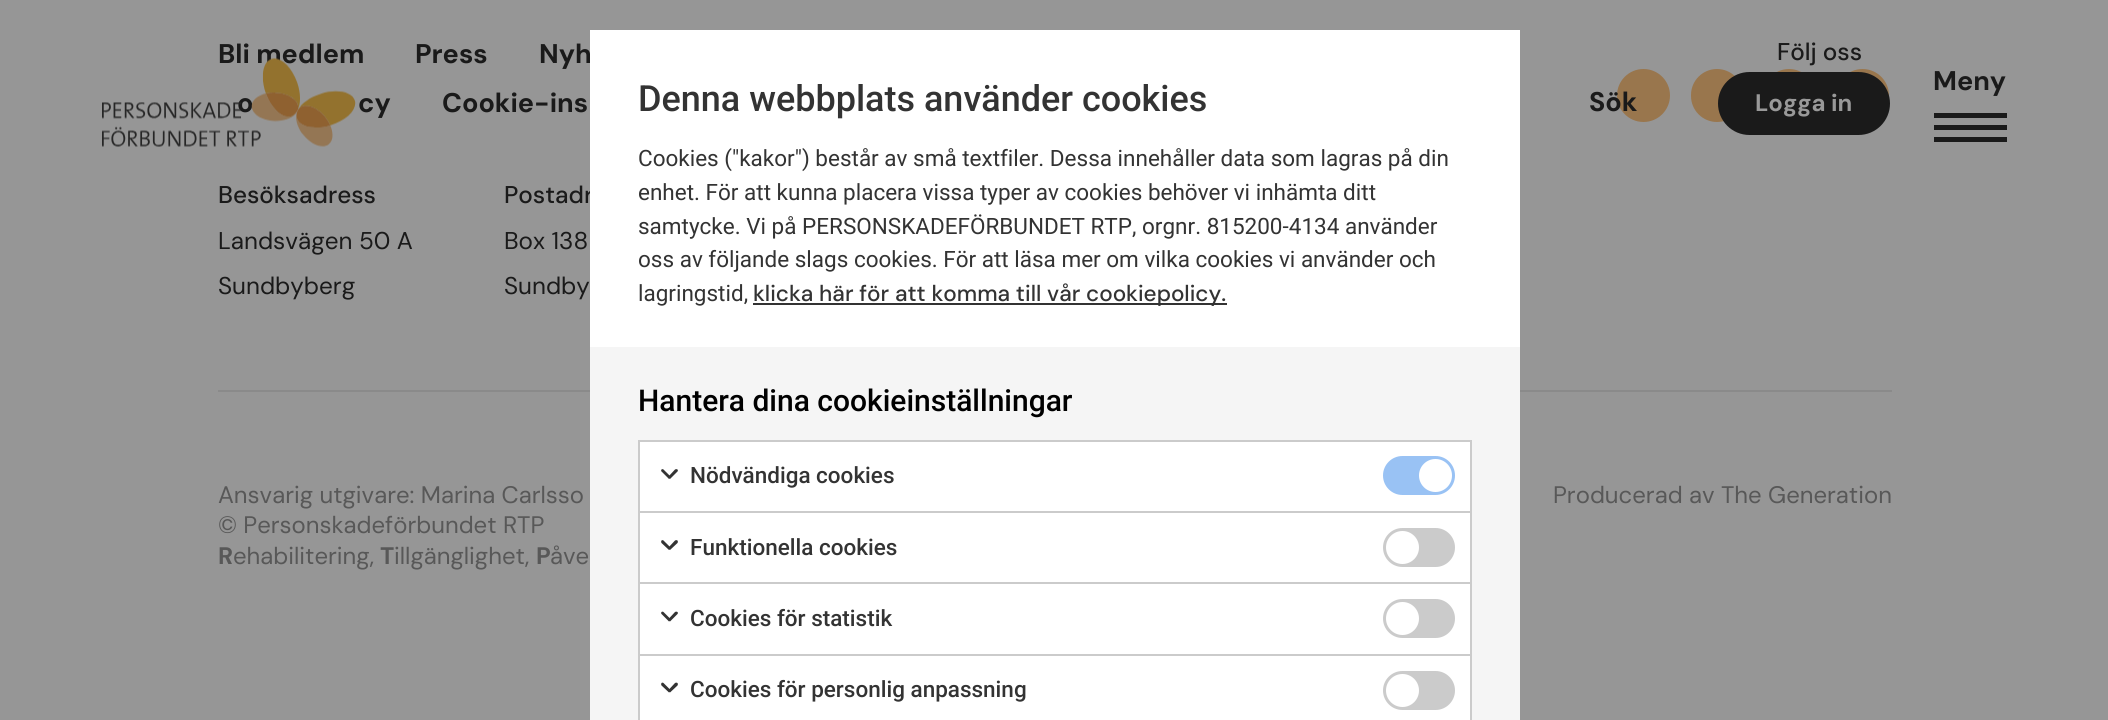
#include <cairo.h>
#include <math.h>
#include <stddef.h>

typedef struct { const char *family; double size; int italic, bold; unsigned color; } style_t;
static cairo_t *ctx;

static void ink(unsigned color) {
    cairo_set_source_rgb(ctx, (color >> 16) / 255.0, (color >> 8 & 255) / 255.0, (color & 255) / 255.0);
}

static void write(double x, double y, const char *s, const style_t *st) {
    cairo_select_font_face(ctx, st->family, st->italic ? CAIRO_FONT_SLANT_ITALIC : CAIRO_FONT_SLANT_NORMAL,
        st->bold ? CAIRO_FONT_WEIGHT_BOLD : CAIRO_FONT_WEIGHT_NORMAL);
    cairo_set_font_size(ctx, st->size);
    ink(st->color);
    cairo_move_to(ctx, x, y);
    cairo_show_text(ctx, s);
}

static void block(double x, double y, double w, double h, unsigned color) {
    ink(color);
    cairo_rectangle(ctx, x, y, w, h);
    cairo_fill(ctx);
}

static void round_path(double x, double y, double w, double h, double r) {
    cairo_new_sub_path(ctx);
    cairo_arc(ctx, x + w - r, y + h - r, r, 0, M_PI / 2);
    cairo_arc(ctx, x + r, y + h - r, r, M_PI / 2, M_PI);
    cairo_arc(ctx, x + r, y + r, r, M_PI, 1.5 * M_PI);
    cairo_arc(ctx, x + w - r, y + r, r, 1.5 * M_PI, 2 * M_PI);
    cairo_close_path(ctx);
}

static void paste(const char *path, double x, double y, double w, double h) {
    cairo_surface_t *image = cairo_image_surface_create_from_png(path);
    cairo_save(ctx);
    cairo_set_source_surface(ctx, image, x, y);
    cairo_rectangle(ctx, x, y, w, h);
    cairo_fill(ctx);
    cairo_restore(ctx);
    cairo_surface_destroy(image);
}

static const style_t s1 = {"DM Sans", 27, 0, 1, 0x1a1a1a};
static const style_t s2 = {"DM Sans Medium", 24.25, 0, 0, 0x1a1a1a};
static const style_t s3 = {"DM Sans", 24.25, 0, 0, 0x1a1a1a};
static const style_t s4 = {"DM Sans", 23.9, 0, 0, 0x585858};
static const style_t s5 = {"DM Sans", 23.9, 0, 1, 0x585858};
static const style_t s6 = {"Roboto Medium", 36, 0, 0, 0x333333};
static const style_t s7 = {"Roboto", 22.5, 0, 0, 0x333333};
static const style_t s8 = {"DM Sans Medium", 22.5, 0, 0, 0x333333};
static const style_t s9 = {"Roboto Medium", 30, 0, 0, 0x000000};
static const style_t s10 = {"Roboto Medium", 22.5, 0, 0, 0x333333};
static const style_t s11 = {"DM Sans", 23.9, 0, 1, 0x999999};

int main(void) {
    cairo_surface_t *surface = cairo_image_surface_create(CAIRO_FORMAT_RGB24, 2108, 720);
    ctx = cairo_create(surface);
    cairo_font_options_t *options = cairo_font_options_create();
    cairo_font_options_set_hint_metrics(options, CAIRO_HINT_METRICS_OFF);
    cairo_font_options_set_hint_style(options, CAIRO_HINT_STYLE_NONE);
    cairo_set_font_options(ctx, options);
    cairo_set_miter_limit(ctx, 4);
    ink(0x969696);
    cairo_paint(ctx);
    write(218, 63, "Bli medlem", &s1);
    write(415, 63, "Press", &s1);
    write(539, 63, "Nyh", &s1);
    write(237, 112, "o", &s1);
    write(358, 112, "cy", &s1);
    write(442, 112, "Cookie-ins", &s1);
    write(1777, 60, "Följ oss", &s2);
    ink(0x99764d);
    cairo_new_path(ctx);
    cairo_arc(ctx, 1643.5, 95.5, 26.5, 0, 2 * M_PI);
    cairo_fill(ctx);
    round_path(1691, 69, 52, 53, 26);
    cairo_fill(ctx);
    round_path(1763, 69, 52, 53, 26);
    cairo_fill(ctx);
    cairo_arc(ctx, 1862.5, 95.5, 26.5, 0, 2 * M_PI);
    cairo_fill(ctx);
    write(218, 203, "Besöksadress", &s2);
    write(218, 249, "Landsvägen 50 A", &s3);
    write(218, 294, "Sundbyberg", &s3);
    write(504, 203, "Postadr", &s2);
    write(504, 249, "Box 138", &s3);
    write(504, 294, "Sundby", &s3);
    block(218, 390, 1674, 2, 0x8a8a8a);
    write(218, 503, "Ansvarig utgivare: Marina Carlsso", &s4);
    write(218, 533, "© Personskadeförbundet RTP", &s4);
    write(218, 564, "R", &s5);
    write(233, 564, "ehabilitering,", &s4);
    write(380, 564, "T", &s5);
    write(394, 564, "illgänglighet,", &s4);
    write(536, 564, "P", &s5);
    write(550, 564, "åve", &s4);
    write(1553, 503, "Producerad av The Generation", &s4);
    block(590, 30, 930, 317, 0xffffff);
    write(638, 111, "Denna webbplats använder cookies", &s6);
    write(638, 166, "Cookies (\"kakor\") består av små textfiler. Dessa innehåller data som lagras på din", &s7);
    write(638, 200, "enhet. För att kunna placera vissa typer av cookies behöver vi inhämta ditt", &s7);
    write(638, 234, "samtycke. Vi på PERSONSKADEFÖRBUNDET RTP, orgnr. 815200-4134 använder", &s7);
    write(638, 267, "oss av följande slags cookies. För att läsa mer om vilka cookies vi använder och", &s7);
    write(638, 301, "lagringstid,", &s7);
    block(753, 303, 474, 2, 0x333333);
    write(753, 301, "klicka här för att komma till vår cookiepolicy.", &s8);
    block(590, 347, 930, 373, 0xf5f5f5);
    write(638, 411, "Hantera dina cookieinställningar", &s9);
    ink(0xffffff);
    cairo_rectangle(ctx, 639, 441, 832, 71);
    cairo_fill_preserve(ctx);
    ink(0xcbcbcb);
    cairo_stroke(ctx);
    ink(0x333333);
    cairo_new_path(ctx);
    cairo_move_to(ctx, 661.5, 469.5);
    cairo_curve_to(ctx, 662, 469, 663, 469, 663.5, 469.5);
    cairo_line_to(ctx, 671, 477);
    cairo_line_to(ctx, 669, 479);
    cairo_line_to(ctx, 661.5, 471.5);
    cairo_curve_to(ctx, 661, 471, 661, 470, 661.5, 469.5);
    cairo_close_path(ctx);
    cairo_fill(ctx);
    cairo_new_path(ctx);
    cairo_move_to(ctx, 677.5, 469.5);
    cairo_curve_to(ctx, 678, 470, 678, 471, 677.5, 471.5);
    cairo_line_to(ctx, 670, 479);
    cairo_line_to(ctx, 668, 477);
    cairo_line_to(ctx, 675, 469.5);
    cairo_curve_to(ctx, 676, 469, 676.5, 469, 677.5, 469.5);
    cairo_close_path(ctx);
    cairo_fill(ctx);
    write(690, 483, "Nödvändiga cookies", &s10);
    ink(0x99c2f4);
    round_path(1383, 456, 72, 39, 19.5);
    cairo_fill(ctx);
    ink(0xffffff);
    cairo_arc(ctx, 1435.5, 475.5, 16.5, 0, 2 * M_PI);
    cairo_fill(ctx);
    block(640, 513, 830, 69, 0xffffff);
    block(1470, 513, 2, 207, 0xcbcbcb);
    block(638, 582, 834, 2, 0xcbcbcb);
    block(638, 513, 2, 71, 0xcbcbcb);
    ink(0x333333);
    cairo_new_path(ctx);
    cairo_move_to(ctx, 661.5, 540.5);
    cairo_curve_to(ctx, 662, 540, 663, 540, 663.5, 540.5);
    cairo_line_to(ctx, 671, 548);
    cairo_line_to(ctx, 669, 550);
    cairo_line_to(ctx, 661.5, 543);
    cairo_curve_to(ctx, 661, 542, 661, 541.5, 661.5, 540.5);
    cairo_close_path(ctx);
    cairo_fill(ctx);
    cairo_new_path(ctx);
    cairo_move_to(ctx, 677.5, 540.5);
    cairo_curve_to(ctx, 678, 541.5, 678, 542, 677.5, 543);
    cairo_line_to(ctx, 670, 550);
    cairo_line_to(ctx, 668, 548);
    cairo_line_to(ctx, 675, 540.5);
    cairo_curve_to(ctx, 676, 540, 676.5, 540, 677.5, 540.5);
    cairo_close_path(ctx);
    cairo_fill(ctx);
    write(690, 555, "Funktionella cookies", &s10);
    ink(0xcbcbcb);
    round_path(1383, 528, 72, 39, 19.5);
    cairo_fill(ctx);
    ink(0xffffff);
    cairo_arc(ctx, 1402.5, 547.5, 16.5, 0, 2 * M_PI);
    cairo_fill(ctx);
    block(640, 584, 830, 70, 0xffffff);
    block(638, 654, 834, 2, 0xcbcbcb);
    block(638, 584, 2, 136, 0xcbcbcb);
    ink(0x333333);
    cairo_new_path(ctx);
    cairo_move_to(ctx, 661.5, 612);
    cairo_curve_to(ctx, 662, 611.5, 663, 611.5, 663.5, 612);
    cairo_line_to(ctx, 671, 619.5);
    cairo_line_to(ctx, 669, 621.5);
    cairo_line_to(ctx, 661.5, 614);
    cairo_curve_to(ctx, 661, 613.5, 661, 612.5, 661.5, 612);
    cairo_close_path(ctx);
    cairo_fill(ctx);
    cairo_new_path(ctx);
    cairo_move_to(ctx, 677.5, 612);
    cairo_curve_to(ctx, 678, 612.5, 678, 613.5, 677.5, 614);
    cairo_line_to(ctx, 670, 621.5);
    cairo_line_to(ctx, 668, 619.5);
    cairo_line_to(ctx, 675, 612);
    cairo_curve_to(ctx, 676, 611.5, 676.5, 611.5, 677.5, 612);
    cairo_close_path(ctx);
    cairo_fill(ctx);
    write(690, 626, "Cookies för statistik", &s10);
    ink(0xcbcbcb);
    round_path(1383, 599, 72, 39, 19.5);
    cairo_fill(ctx);
    ink(0xffffff);
    cairo_arc(ctx, 1402.5, 618.5, 16.5, 0, 2 * M_PI);
    cairo_fill(ctx);
    block(640, 656, 830, 64, 0xffffff);
    ink(0x333333);
    cairo_new_path(ctx);
    cairo_move_to(ctx, 661.5, 683);
    cairo_curve_to(ctx, 662, 682.5, 663, 682.5, 663.5, 683);
    cairo_line_to(ctx, 671, 690.5);
    cairo_line_to(ctx, 669, 692.5);
    cairo_line_to(ctx, 661.5, 685.5);
    cairo_curve_to(ctx, 661, 684.5, 661, 684, 661.5, 683);
    cairo_close_path(ctx);
    cairo_fill(ctx);
    cairo_new_path(ctx);
    cairo_move_to(ctx, 677.5, 683);
    cairo_curve_to(ctx, 678, 684, 678, 684.5, 677.5, 685.5);
    cairo_line_to(ctx, 670, 692.5);
    cairo_line_to(ctx, 668, 690.5);
    cairo_line_to(ctx, 675, 683);
    cairo_curve_to(ctx, 676, 682.5, 676.5, 682.5, 677.5, 683);
    cairo_close_path(ctx);
    cairo_fill(ctx);
    write(690, 697, "Cookies för personlig anpassning", &s10);
    ink(0xcbcbcb);
    round_path(1383, 671, 72, 39, 19.5);
    cairo_fill(ctx);
    ink(0xffffff);
    cairo_arc(ctx, 1402.5, 690.5, 16.5, 0, 2 * M_PI);
    cairo_fill(ctx);
    paste("pic1.png", 102, 58, 254, 89);
    write(1933, 90, "Meny", &s1);
    block(1934, 125, 73, 5, 0x1a1a1a);
    block(1934, 113, 73, 5, 0x1a1a1a);
    block(1934, 137, 73, 5, 0x1a1a1a);
    write(1589, 111, "Sök", &s1);
    round_path(1718, 72, 172, 63, 31.5);
    cairo_fill(ctx);
    write(1755, 111, "Logga in", &s11);
    cairo_surface_write_to_png(surface, "screenshot.png");
    cairo_font_options_destroy(options);
    cairo_destroy(ctx);
    cairo_surface_destroy(surface);
    return 0;
}
